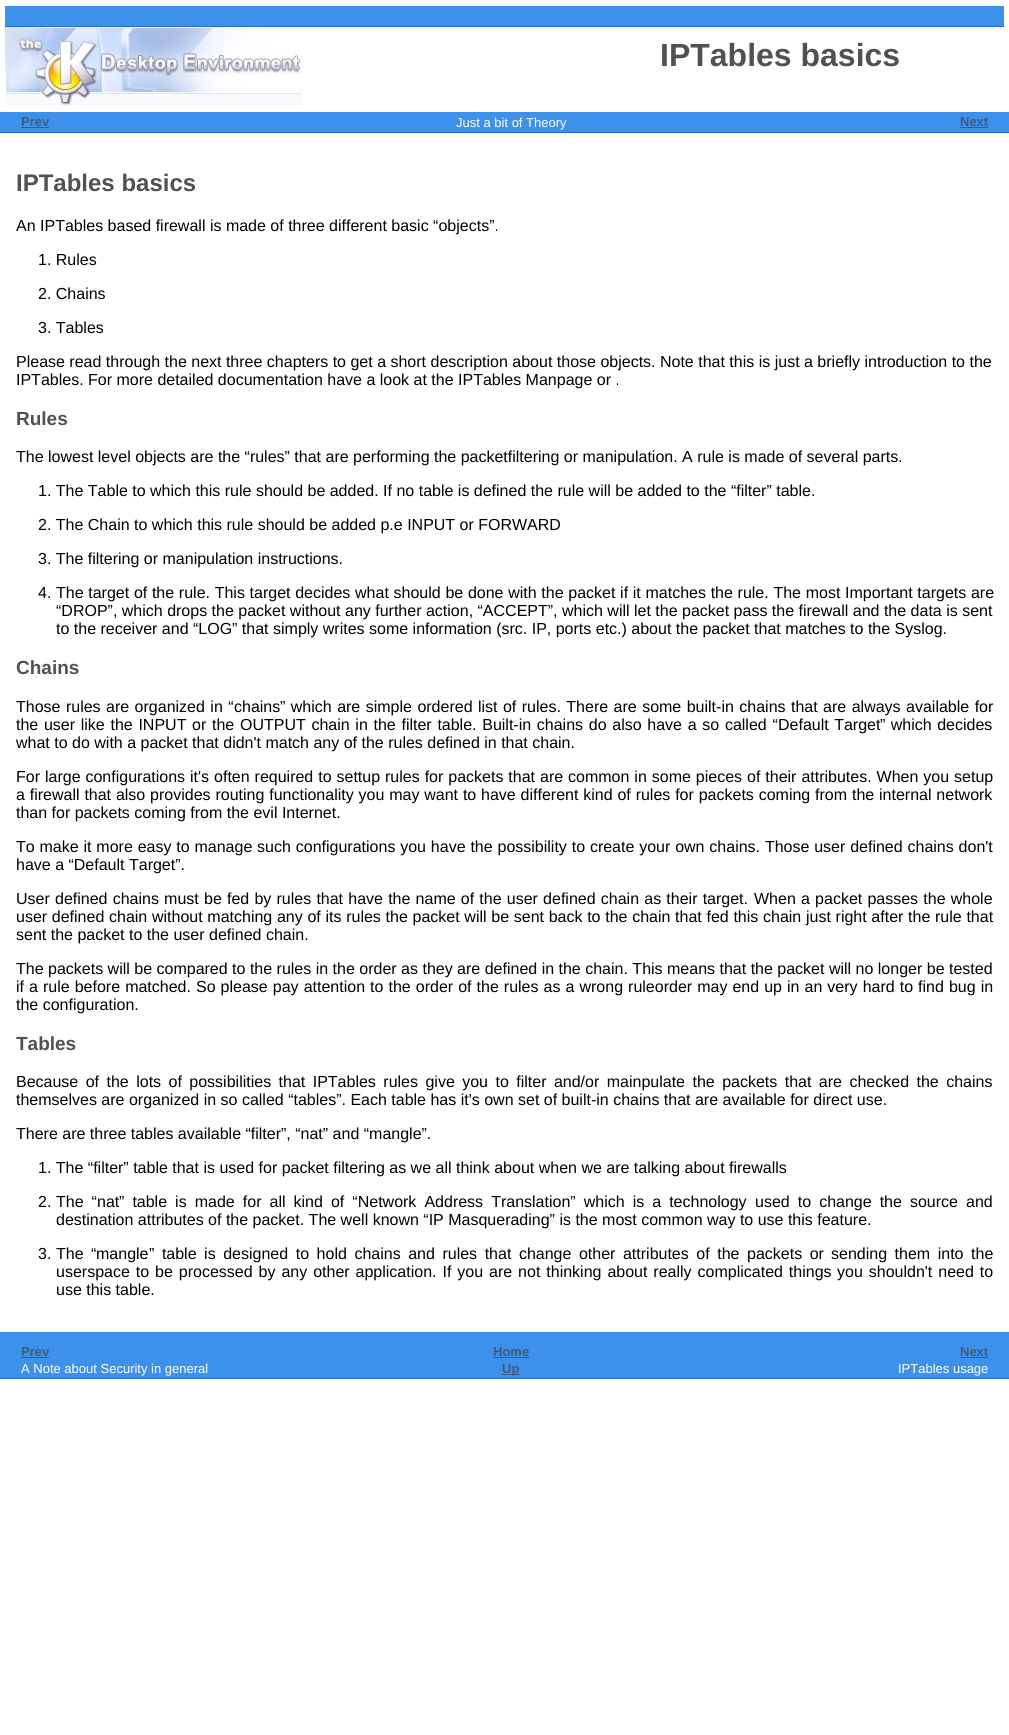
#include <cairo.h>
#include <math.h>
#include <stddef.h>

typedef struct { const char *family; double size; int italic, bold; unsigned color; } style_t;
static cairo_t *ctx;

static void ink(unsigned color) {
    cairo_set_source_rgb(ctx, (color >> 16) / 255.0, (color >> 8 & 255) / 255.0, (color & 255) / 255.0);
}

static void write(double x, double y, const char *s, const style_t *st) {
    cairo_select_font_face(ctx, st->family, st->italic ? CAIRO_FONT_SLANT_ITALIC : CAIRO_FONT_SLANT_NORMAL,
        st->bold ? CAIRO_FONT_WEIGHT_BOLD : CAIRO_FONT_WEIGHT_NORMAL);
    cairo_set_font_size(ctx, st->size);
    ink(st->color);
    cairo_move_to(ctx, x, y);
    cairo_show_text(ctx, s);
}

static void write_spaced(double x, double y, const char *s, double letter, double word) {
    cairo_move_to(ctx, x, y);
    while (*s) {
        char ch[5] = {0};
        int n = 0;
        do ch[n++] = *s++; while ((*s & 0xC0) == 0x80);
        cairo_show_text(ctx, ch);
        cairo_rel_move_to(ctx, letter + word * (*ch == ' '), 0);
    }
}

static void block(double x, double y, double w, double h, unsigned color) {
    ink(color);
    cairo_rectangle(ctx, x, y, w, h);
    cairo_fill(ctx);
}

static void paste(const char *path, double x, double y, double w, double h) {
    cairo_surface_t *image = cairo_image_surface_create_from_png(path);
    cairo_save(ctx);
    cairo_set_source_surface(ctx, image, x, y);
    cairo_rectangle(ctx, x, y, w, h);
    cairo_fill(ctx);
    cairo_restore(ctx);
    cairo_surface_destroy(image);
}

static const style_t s1 = {"Liberation Sans", 32, 0, 1, 0x525052};
static const style_t s2 = {"Liberation Sans", 13, 0, 1, 0x41597a};
static const style_t s3 = {"Liberation Sans", 13, 0, 0, 0xffffff};
static const style_t s4 = {"Liberation Sans", 24, 0, 1, 0x525052};
static const style_t s5 = {"Liberation Sans", 16, 0, 0, 0x000000};
static const style_t s6 = {"Liberation Sans", 19, 0, 1, 0x525052};

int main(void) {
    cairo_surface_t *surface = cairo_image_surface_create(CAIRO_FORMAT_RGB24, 1009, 1735);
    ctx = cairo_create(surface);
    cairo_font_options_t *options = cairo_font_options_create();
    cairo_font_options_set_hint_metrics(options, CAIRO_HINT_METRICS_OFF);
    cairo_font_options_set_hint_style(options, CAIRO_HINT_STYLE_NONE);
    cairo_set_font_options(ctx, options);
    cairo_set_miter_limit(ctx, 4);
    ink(0xffffff);
    cairo_paint(ctx);
    block(5, 6, 999, 20, 0x3e91eb);
    block(5, 26, 999, 1, 0x206dcd);
    paste("pic1.png", 5, 27, 296, 79);
    write(660, 66, "IPTables basics", &s1);
    block(0, 112, 1009, 20, 0x3e91eb);
    block(0, 132, 1009, 1, 0x206dcd);
    write(21, 126, "Prev", &s2);
    block(21, 127, 28, 1, 0x41597a);
    write(456, 127, "Just a bit of Theory", &s3);
    write(960, 126, "Next", &s2);
    block(960, 127, 28, 1, 0x41597a);
    write(16, 191, "IPTables basics", &s4);
    write(16, 231, "An IPTables based firewall is made of three different basic “objects”.", &s5);
    write(38, 265, "1. Rules", &s5);
    write(38, 299, "2. Chains", &s5);
    write(38, 333, "3. Tables", &s5);
    write(16, 367, "Please read through the next three chapters to get a short description about those objects. Note that this is just a briefly introduction to the", &s5);
    write(16, 385, "IPTables. For more detailed documentation have a look at the IPTables Manpage or .", &s5);
    write(16, 425, "Rules", &s6);
    write(16, 462, "The lowest level objects are the “rules” that are performing the packetfiltering or manipulation. A rule is made of several parts.", &s5);
    write(38, 496, "1. The Table to which this rule should be added. If no table is defined the rule will be added to the “filter” table.", &s5);
    write(38, 530, "2. The Chain to which this rule should be added p.e INPUT or FORWARD", &s5);
    write(38, 564, "3. The filtering or manipulation instructions.", &s5);
    write(38, 598, "4.", &s5);
    write_spaced(56, 598, "The target of the rule. This target decides what should be done with the packet if it matches the rule. The most Important targets are", 0, 0.25);
    write(56, 616, "“DROP”, which drops the packet without any further action, “ACCEPT”, which will let the packet pass the firewall and the data is sent", &s5);
    write(56, 634, "to the receiver and “LOG” that simply writes some information (src. IP, ports etc.) about the packet that matches to the Syslog.", &s5);
    write(16, 674, "Chains", &s6);
    cairo_select_font_face(ctx, "Liberation Sans", CAIRO_FONT_SLANT_NORMAL, CAIRO_FONT_WEIGHT_NORMAL);
    cairo_set_font_size(ctx, 16);
    ink(0x000000);
    write_spaced(16, 712, "Those rules are organized in “", 0, 1);
    write(234, 712, "chains", &s5);
    write_spaced(280, 712, "” which are simple ordered list of rules. There are some built-in chains that are always available for", 0, 1);
    write_spaced(16, 730, "the user like the INPUT or the OUTPUT chain in the filter table. Built-in chains do also have a so called “", 0, 1.25);
    write_spaced(778, 730, "Default Target", 0, 1);
    write_spaced(880, 730, "” which decides", 0, 1);
    write(16, 748, "what to do with a packet that didn't match any of the rules defined in that chain.", &s5);
    write_spaced(16, 782, "For large configurations it's often required to settup rules for packets that are common in some pieces of their attributes. When you setup", 0, 0.5);
    write_spaced(16, 800, "a firewall that also provides routing functionality you may want to have different kind of rules for packets coming from the internal network", 0, 0.4);
    write(16, 818, "than for packets coming from the evil Internet.", &s5);
    write_spaced(16, 852, "To make it more easy to manage such configurations you have the possibility to create your own chains. Those user defined chains don't", 0, 0.4);
    write(16, 870, "have a “Default Target”.", &s5);
    write_spaced(16, 904, "User defined chains must be fed by rules that have the name of the user defined chain as their target.", 0, 0.75);
    write_spaced(754, 904, "When a packet passes the whole", 0, 0.75);
    write_spaced(16, 922, "user defined chain without matching any of its rules the packet will be sent back to the chain that fed this chain just right after the rule that", 0, 0.25);
    write(16, 940, "sent the packet to the user defined chain.", &s5);
    write(16, 974, "The packets will be compared to the rules in the order as they are defined in the chain. This means that the packet will no longer be tested", &s5);
    write_spaced(16, 992, "if a rule before matched. So please pay attention to the order of the rules as a wrong ruleorder may end up in an very hard to find bug in", 0, 0.6);
    write(16, 1010, "the configuration.", &s5);
    write(16, 1050, "Tables", &s6);
    cairo_select_font_face(ctx, "Liberation Sans", CAIRO_FONT_SLANT_NORMAL, CAIRO_FONT_WEIGHT_NORMAL);
    cairo_set_font_size(ctx, 16);
    ink(0x000000);
    write_spaced(16, 1087, "Because of the lots of possibilities that IPTables rules give you to filter and/or mainpulate the packets that are checked the chains", 0, 3);
    write(16, 1105, "themselves are organized in so called “tables”. Each table has it's own set of built-in chains that are available for direct use.", &s5);
    write(16, 1139, "There are three tables available “filter”, “nat” and “mangle”.", &s5);
    write(38, 1173, "1. The “filter” table that is used for packet filtering as we all think about when we are talking about firewalls", &s5);
    write(38, 1207, "2.", &s5);
    write_spaced(56, 1207, "The “", 0, 3.6);
    write(97, 1207, "nat", &s5);
    write_spaced(119, 1207, "” table is made for all kind of “Network Address Translation” which is a technology", 0, 3.6);
    write_spaced(755, 1207, "used to change the source and", 0, 3.6);
    write(56, 1225, "destination attributes of the packet. The well known “IP Masquerading” is the most common way to use this feature.", &s5);
    write(38, 1259, "3.", &s5);
    write_spaced(56, 1259, "The “", 0, 3.1);
    write(96, 1259, "mangle", &s5);
    write_spaced(149, 1259, "” table is designed to hold chains and rules that change other attributes of the packets or", 0, 3.1);
    write_spaced(831, 1259, "sending them into the", 0, 3.1);
    write_spaced(56, 1277, "userspace to be processed by any other application. If you are not thinking about really complicated things", 0, 1.5);
    write_spaced(837, 1277, "you shouldn't need to", 0, 1.5);
    write(56, 1295, "use this table.", &s5);
    block(0, 1332, 1009, 46, 0x3e91eb);
    block(0, 1378, 1009, 1, 0x206dcd);
    write(21, 1356, "Prev", &s2);
    block(21, 1357, 28, 1, 0x41597a);
    write(493, 1356, "Home", &s2);
    block(493, 1357, 36, 1, 0x41597a);
    write(960, 1356, "Next", &s2);
    block(960, 1357, 28, 1, 0x41597a);
    write(21, 1373, "A Note about Security in general", &s3);
    block(502, 1374, 18, 1, 0x41597a);
    write(502, 1373, "Up", &s2);
    write(898, 1373, "IPTables usage", &s3);
    cairo_surface_write_to_png(surface, "screenshot.png");
    cairo_font_options_destroy(options);
    cairo_destroy(ctx);
    cairo_surface_destroy(surface);
    return 0;
}
